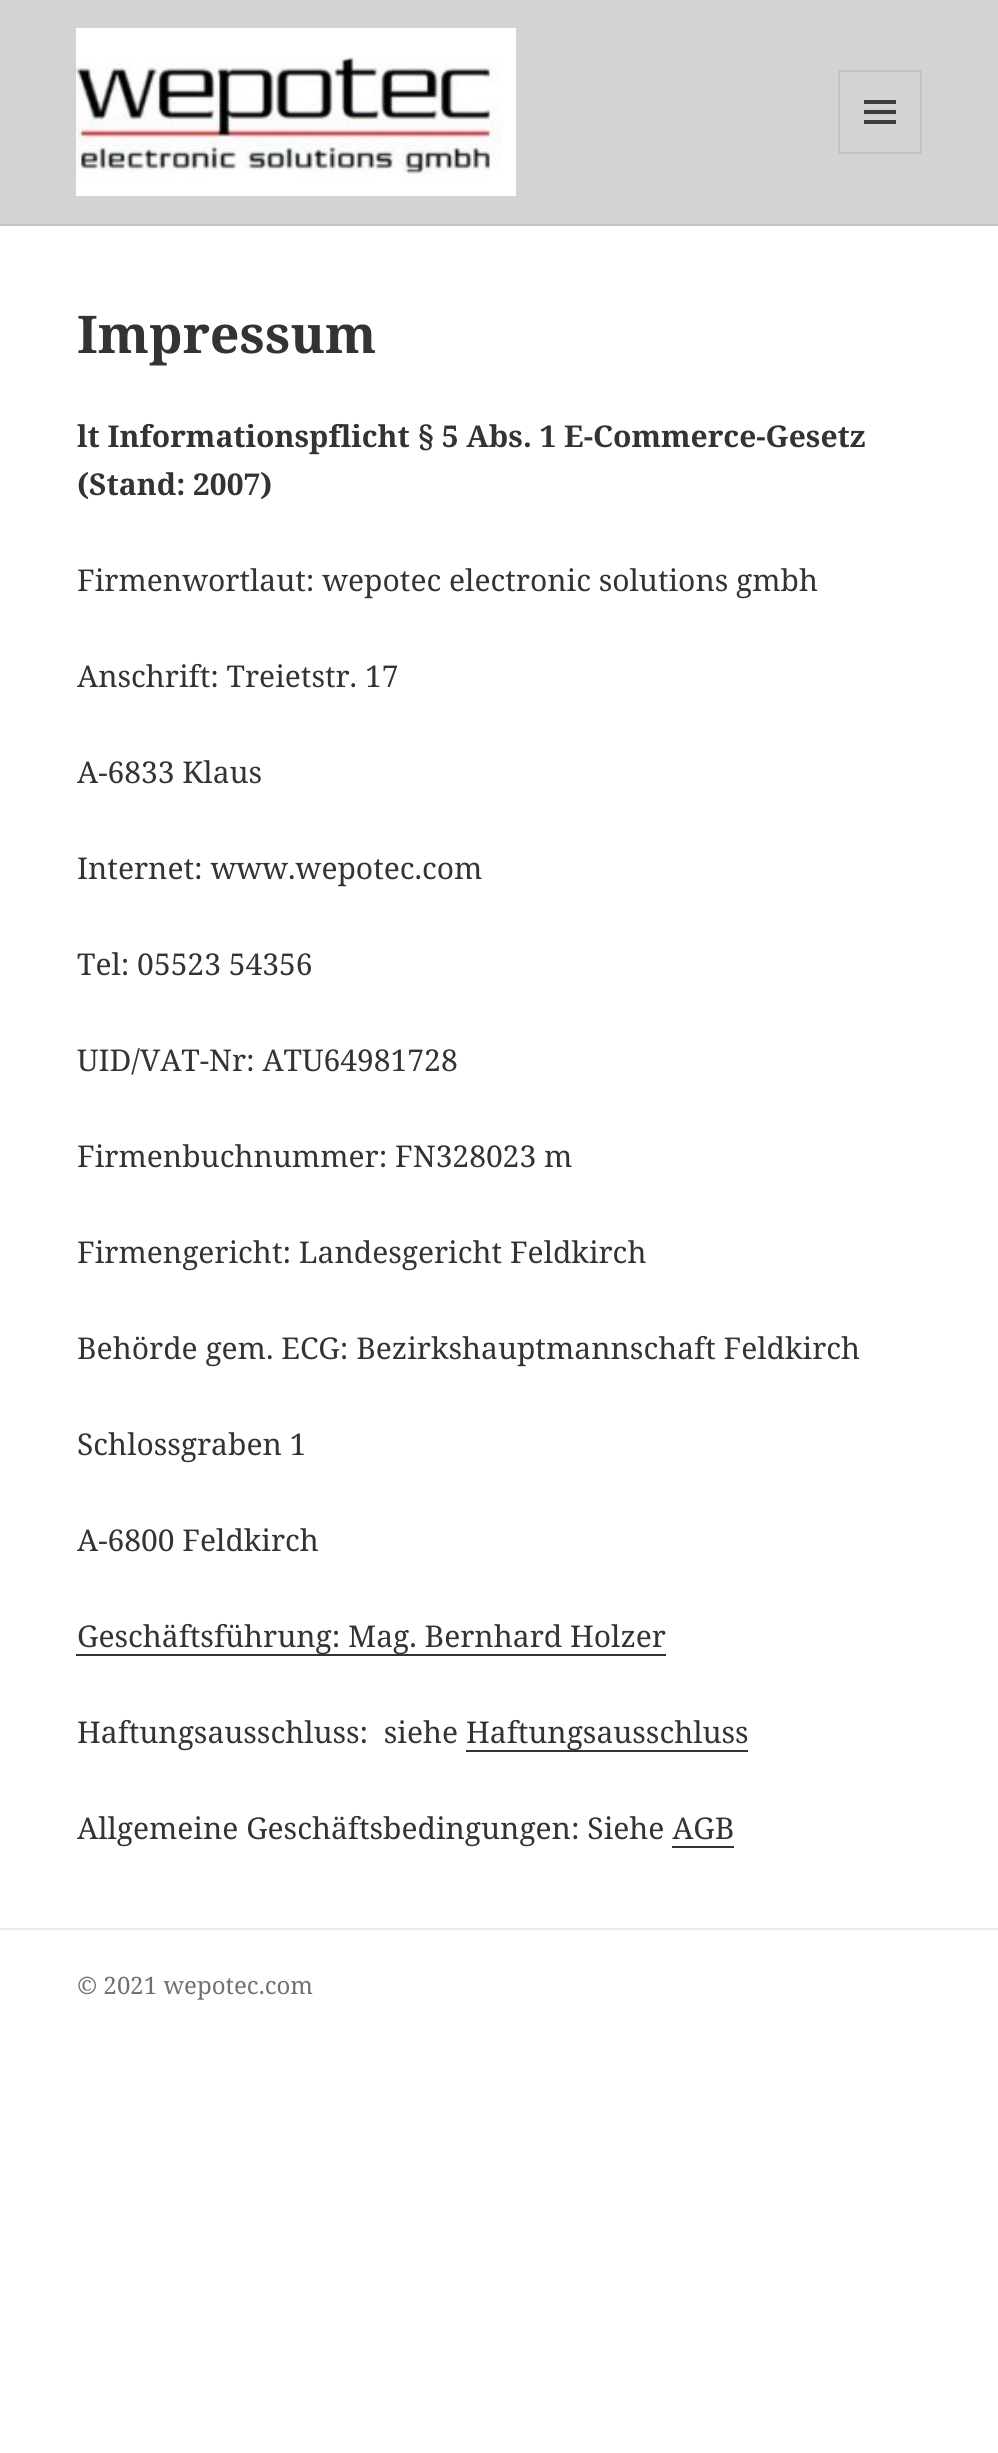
#include <cairo.h>
#include <math.h>
#include <stddef.h>

typedef struct { const char *family; double size; int italic, bold; unsigned color; } style_t;
static cairo_t *ctx;

static void ink(unsigned color) {
    cairo_set_source_rgb(ctx, (color >> 16) / 255.0, (color >> 8 & 255) / 255.0, (color & 255) / 255.0);
}

static void write(double x, double y, const char *s, const style_t *st) {
    cairo_select_font_face(ctx, st->family, st->italic ? CAIRO_FONT_SLANT_ITALIC : CAIRO_FONT_SLANT_NORMAL,
        st->bold ? CAIRO_FONT_WEIGHT_BOLD : CAIRO_FONT_WEIGHT_NORMAL);
    cairo_set_font_size(ctx, st->size);
    ink(st->color);
    cairo_move_to(ctx, x, y);
    cairo_show_text(ctx, s);
}

static void block(double x, double y, double w, double h, unsigned color) {
    ink(color);
    cairo_rectangle(ctx, x, y, w, h);
    cairo_fill(ctx);
}

static void paste(const char *path, double x, double y, double w, double h) {
    cairo_surface_t *image = cairo_image_surface_create_from_png(path);
    cairo_save(ctx);
    cairo_set_source_surface(ctx, image, x, y);
    cairo_rectangle(ctx, x, y, w, h);
    cairo_fill(ctx);
    cairo_restore(ctx);
    cairo_surface_destroy(image);
}

static const style_t s1 = {"Noto Serif", 52, 0, 1, 0x333333};
static const style_t s2 = {"Noto Serif", 30, 0, 1, 0x333333};
static const style_t s3 = {"Noto Serif", 30, 0, 0, 0x333333};
static const style_t s4 = {"Noto Serif", 24, 0, 0, 0x707070};

int main(void) {
    cairo_surface_t *surface = cairo_image_surface_create(CAIRO_FORMAT_RGB24, 998, 2453);
    ctx = cairo_create(surface);
    cairo_font_options_t *options = cairo_font_options_create();
    cairo_font_options_set_hint_metrics(options, CAIRO_HINT_METRICS_OFF);
    cairo_font_options_set_hint_style(options, CAIRO_HINT_STYLE_NONE);
    cairo_set_font_options(ctx, options);
    cairo_set_miter_limit(ctx, 4);
    ink(0xffffff);
    cairo_paint(ctx);
    block(0, 0, 998, 224, 0xd3d3d3);
    block(0, 224, 998, 2, 0xc3c3c3);
    paste("pic1.png", 76, 28, 440, 168);
    cairo_rectangle(ctx, 839, 71, 82, 82);
    ink(0xc4c4c4);
    cairo_stroke(ctx);
    paste("pic2.png", 864, 100, 32, 24);
    write(77, 353, "Impressum", &s1);
    write(77, 447, "lt Informationspflicht § 5 Abs. 1 E-Commerce-Gesetz", &s2);
    write(77, 495, "(Stand: 2007)", &s2);
    write(77, 591, "Firmenwortlaut: wepotec electronic solutions gmbh", &s3);
    write(77, 687, "Anschrift: Treietstr. 17", &s3);
    write(77, 783, "A-6833 Klaus", &s3);
    write(77, 879, "Internet: www.wepotec.com", &s3);
    write(77, 975, "Tel: 05523 54356", &s3);
    write(77, 1071, "UID/VAT-Nr: ATU64981728", &s3);
    write(77, 1167, "Firmenbuchnummer: FN328023 m", &s3);
    write(77, 1263, "Firmengericht: Landesgericht Feldkirch", &s3);
    write(77, 1359, "Behörde gem. ECG: Bezirkshauptmannschaft Feldkirch", &s3);
    write(77, 1455, "Schlossgraben 1", &s3);
    write(77, 1551, "A-6800 Feldkirch", &s3);
    block(76, 1654, 590, 2, 0x333333);
    write(77, 1647, "Geschäftsführung: Mag. Bernhard Holzer", &s3);
    write(77, 1743, "Haftungsausschluss:  siehe", &s3);
    block(466, 1750, 282, 2, 0x333333);
    write(466, 1743, "Haftungsausschluss", &s3);
    write(77, 1839, "Allgemeine Geschäftsbedingungen: Siehe AGB", &s3);
    block(672, 1846, 62, 2, 0x333333);
    block(0, 1928, 998, 2, 0xebebeb);
    write(77, 1994, "© 2021 wepotec.com", &s4);
    cairo_surface_write_to_png(surface, "screenshot.png");
    cairo_font_options_destroy(options);
    cairo_destroy(ctx);
    cairo_surface_destroy(surface);
    return 0;
}
